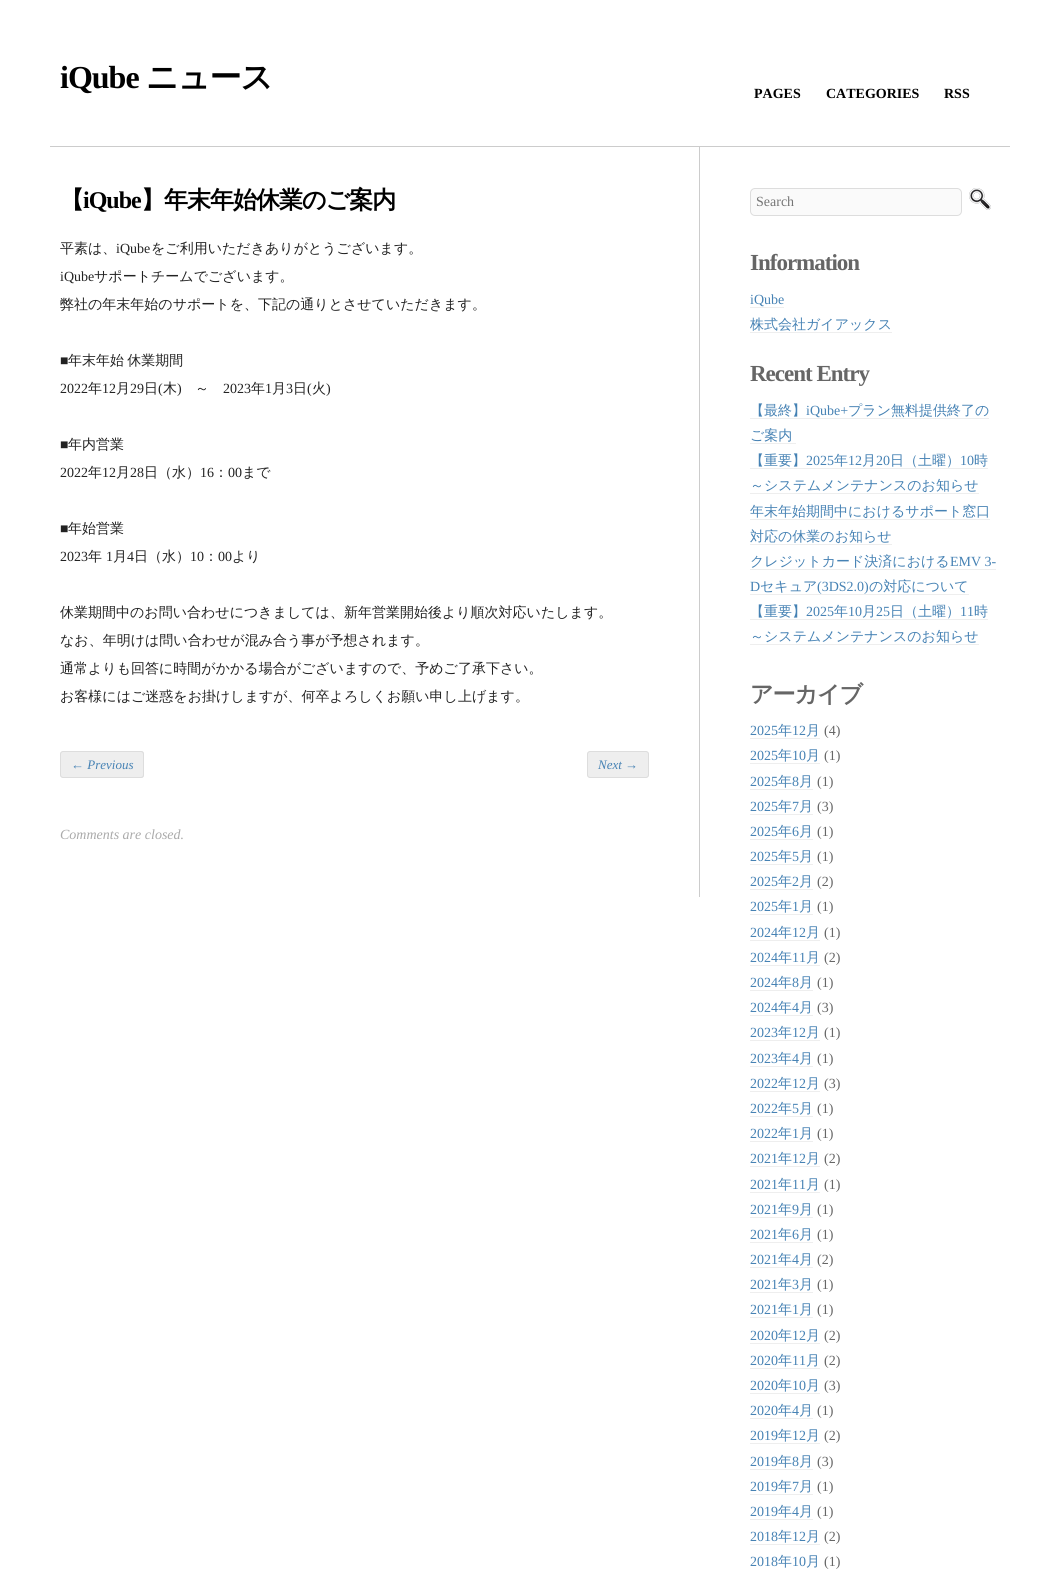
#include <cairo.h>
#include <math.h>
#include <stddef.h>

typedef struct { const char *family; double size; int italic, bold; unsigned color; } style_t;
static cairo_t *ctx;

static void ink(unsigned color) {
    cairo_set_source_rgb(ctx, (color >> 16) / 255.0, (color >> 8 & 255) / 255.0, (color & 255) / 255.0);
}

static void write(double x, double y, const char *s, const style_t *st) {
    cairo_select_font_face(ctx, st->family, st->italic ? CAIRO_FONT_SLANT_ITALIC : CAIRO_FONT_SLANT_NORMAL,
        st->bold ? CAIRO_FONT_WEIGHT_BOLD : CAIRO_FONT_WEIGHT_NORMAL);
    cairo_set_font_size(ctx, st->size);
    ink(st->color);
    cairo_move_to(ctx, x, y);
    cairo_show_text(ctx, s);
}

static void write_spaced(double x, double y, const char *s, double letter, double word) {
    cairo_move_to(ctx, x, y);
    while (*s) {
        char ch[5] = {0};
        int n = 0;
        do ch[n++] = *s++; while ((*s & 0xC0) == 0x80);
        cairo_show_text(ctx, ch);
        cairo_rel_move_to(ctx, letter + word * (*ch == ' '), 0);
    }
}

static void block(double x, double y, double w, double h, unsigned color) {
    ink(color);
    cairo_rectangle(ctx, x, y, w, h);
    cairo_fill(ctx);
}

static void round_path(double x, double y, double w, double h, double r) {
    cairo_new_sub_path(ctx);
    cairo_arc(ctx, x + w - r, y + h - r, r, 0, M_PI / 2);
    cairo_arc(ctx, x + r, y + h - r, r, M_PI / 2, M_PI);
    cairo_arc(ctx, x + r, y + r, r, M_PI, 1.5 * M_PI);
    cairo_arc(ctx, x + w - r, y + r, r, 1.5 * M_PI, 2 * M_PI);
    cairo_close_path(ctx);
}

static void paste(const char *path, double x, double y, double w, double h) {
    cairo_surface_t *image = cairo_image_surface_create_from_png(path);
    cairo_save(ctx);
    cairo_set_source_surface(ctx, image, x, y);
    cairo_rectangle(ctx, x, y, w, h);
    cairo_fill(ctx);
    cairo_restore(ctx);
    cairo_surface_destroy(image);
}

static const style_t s1 = {"Liberation Serif", 14, 0, 1, 0x000000};
static const style_t s2 = {"WenQuanYi Zen Hei Medium", 14, 0, 0, 0x222222};
static const style_t s3 = {"Liberation Serif", 14, 0, 0, 0x222222};
static const style_t s4 = {"Liberation Serif", 13, 1, 0, 0x4682b4};
static const style_t s5 = {"Liberation Serif", 14, 1, 0, 0xaaaaaa};
static const style_t s6 = {"Liberation Serif", 14, 0, 0, 0x757575};
static const style_t s7 = {"Liberation Serif", 14, 0, 0, 0x4682b4};
static const style_t s8 = {"WenQuanYi Zen Hei Medium", 14, 0, 0, 0x4682b4};
static const style_t s9 = {"Liberation Serif", 14, 0, 0, 0x666666};

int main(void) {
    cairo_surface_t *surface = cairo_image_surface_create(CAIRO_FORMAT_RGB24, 1060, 1569);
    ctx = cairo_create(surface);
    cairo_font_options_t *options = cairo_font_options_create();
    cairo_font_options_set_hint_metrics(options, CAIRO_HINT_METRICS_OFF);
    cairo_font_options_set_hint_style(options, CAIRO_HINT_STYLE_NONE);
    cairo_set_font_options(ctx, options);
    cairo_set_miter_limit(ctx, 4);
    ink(0xffffff);
    cairo_paint(ctx);
    cairo_select_font_face(ctx, "Liberation Serif", CAIRO_FONT_SLANT_NORMAL, CAIRO_FONT_WEIGHT_BOLD);
    cairo_set_font_size(ctx, 32);
    ink(0x000000);
    write_spaced(60, 88, "iQube", -1, 0);
    cairo_select_font_face(ctx, "WenQuanYi Zen Hei", CAIRO_FONT_SLANT_NORMAL, CAIRO_FONT_WEIGHT_BOLD);
    write_spaced(146, 88, "ニュース", -1, 0);
    write(754, 98, "PAGES", &s1);
    write(826, 98, "CATEGORIES", &s1);
    write(944, 98, "RSS", &s1);
    block(50, 146, 960, 1, 0xcccccc);
    block(699, 147, 1, 750, 0xcccccc);
    cairo_select_font_face(ctx, "WenQuanYi Zen Hei", CAIRO_FONT_SLANT_NORMAL, CAIRO_FONT_WEIGHT_BOLD);
    cairo_set_font_size(ctx, 24);
    ink(0x000000);
    write_spaced(60, 208, "【", -1, 0);
    cairo_select_font_face(ctx, "Liberation Serif", CAIRO_FONT_SLANT_NORMAL, CAIRO_FONT_WEIGHT_BOLD);
    write_spaced(83, 208, "iQube", -1, 0);
    cairo_select_font_face(ctx, "WenQuanYi Zen Hei", CAIRO_FONT_SLANT_NORMAL, CAIRO_FONT_WEIGHT_BOLD);
    write_spaced(141, 208, "】年末年始休業のご案内", -1, 0);
    write(60, 253, "平素は、", &s2);
    write(116, 253, "iQube", &s3);
    write(151, 253, "をご利用いただきありがとうございます。", &s2);
    write(60, 281, "iQube", &s3);
    write(94, 281, "サポートチームでございます。", &s2);
    write(60, 309, "弊社の年末年始のサポートを、下記の通りとさせていただきます。", &s2);
    write(60, 365, "■", &s3);
    cairo_select_font_face(ctx, "WenQuanYi Zen Hei Medium", CAIRO_FONT_SLANT_NORMAL, CAIRO_FONT_WEIGHT_NORMAL);
    write_spaced(68, 365, "年末年始 休業期間", 0, -1);
    write(60, 393, "2022", &s3);
    write(88, 393, "年", &s2);
    write(102, 393, "12", &s3);
    write(116, 393, "月", &s2);
    write(130, 393, "29", &s3);
    write(144, 393, "日", &s2);
    write(158, 393, "(", &s3);
    write(163, 393, "木", &s2);
    write(177, 393, ")", &s3);
    write(195, 393, "～", &s2);
    write(223, 393, "2023", &s3);
    write(251, 393, "年", &s2);
    write(265, 393, "1", &s3);
    write(272, 393, "月", &s2);
    write(286, 393, "3", &s3);
    write(293, 393, "日", &s2);
    write(307, 393, "(", &s3);
    write(312, 393, "火", &s2);
    write(326, 393, ")", &s3);
    write(60, 449, "■", &s3);
    write(68, 449, "年内営業", &s2);
    write(60, 477, "2022", &s3);
    write(88, 477, "年", &s2);
    write(102, 477, "12", &s3);
    write(116, 477, "月", &s2);
    write(130, 477, "28", &s3);
    write(144, 477, "日（水）", &s2);
    write(200, 477, "16", &s3);
    write(214, 477, "：", &s2);
    write(228, 477, "00", &s3);
    write(242, 477, "まで", &s2);
    write(60, 533, "■", &s3);
    write(68, 533, "年始営業", &s2);
    write(60, 561, "2023", &s3);
    write(88, 561, "年", &s2);
    write(106, 561, "1", &s3);
    write(113, 561, "月", &s2);
    write(127, 561, "4", &s3);
    write(134, 561, "日（水）", &s2);
    write(190, 561, "10", &s3);
    write(204, 561, "：", &s2);
    write(218, 561, "00", &s3);
    write(232, 561, "より", &s2);
    write(60, 617, "休業期間中のお問い合わせにつきましては、新年営業開始後より順次対応いたします。", &s2);
    write(60, 645, "なお、年明けは問い合わせが混み合う事が予想されます。", &s2);
    write(60, 673, "通常よりも回答に時間がかかる場合がございますので、予めご了承下さい。", &s2);
    write(60, 701, "お客様にはご迷惑をお掛けしますが、何卒よろしくお願い申し上げます。", &s2);
    ink(0xeeeeee);
    cairo_new_path(ctx);
    cairo_move_to(ctx, 63, 751);
    cairo_line_to(ctx, 84, 751);
    cairo_line_to(ctx, 84, 778);
    cairo_line_to(ctx, 63, 778);
    cairo_curve_to(ctx, 61.5, 778, 60, 776.5, 60, 775);
    cairo_line_to(ctx, 60, 754);
    cairo_curve_to(ctx, 60, 752.5, 61.5, 751, 63, 751);
    cairo_close_path(ctx);
    cairo_fill(ctx);
    ink(0xdddddd);
    cairo_set_fill_rule(ctx, CAIRO_FILL_RULE_EVEN_ODD);
    cairo_new_path(ctx);
    cairo_move_to(ctx, 63, 751);
    cairo_line_to(ctx, 84, 751);
    cairo_line_to(ctx, 84, 778);
    cairo_line_to(ctx, 63, 778);
    cairo_curve_to(ctx, 61.5, 778, 60, 776.5, 60, 775);
    cairo_line_to(ctx, 60, 754);
    cairo_curve_to(ctx, 60, 752.5, 61.5, 751, 63, 751);
    cairo_close_path(ctx);
    cairo_move_to(ctx, 63, 752);
    cairo_line_to(ctx, 84, 752);
    cairo_line_to(ctx, 84, 777);
    cairo_line_to(ctx, 63, 777);
    cairo_curve_to(ctx, 62, 777, 61, 776, 61, 775);
    cairo_line_to(ctx, 61, 754);
    cairo_curve_to(ctx, 61, 753, 62, 752, 63, 752);
    cairo_close_path(ctx);
    cairo_fill(ctx);
    ink(0xeeeeee);
    cairo_new_path(ctx);
    cairo_move_to(ctx, 84, 751);
    cairo_line_to(ctx, 141, 751);
    cairo_curve_to(ctx, 142.5, 751, 144, 752.5, 144, 754);
    cairo_line_to(ctx, 144, 775);
    cairo_curve_to(ctx, 144, 776.5, 142.5, 778, 141, 778);
    cairo_line_to(ctx, 84, 778);
    cairo_close_path(ctx);
    cairo_fill(ctx);
    ink(0xdddddd);
    cairo_new_path(ctx);
    cairo_move_to(ctx, 84, 751);
    cairo_line_to(ctx, 141, 751);
    cairo_curve_to(ctx, 143, 751, 144, 752, 144, 754);
    cairo_line_to(ctx, 144, 775);
    cairo_curve_to(ctx, 144, 777, 143, 778, 141, 778);
    cairo_line_to(ctx, 84, 778);
    cairo_close_path(ctx);
    cairo_move_to(ctx, 84, 752);
    cairo_line_to(ctx, 141, 752);
    cairo_curve_to(ctx, 142, 752, 143, 753, 143, 754);
    cairo_line_to(ctx, 143, 775);
    cairo_curve_to(ctx, 143, 776, 142, 777, 141, 777);
    cairo_line_to(ctx, 84, 777);
    cairo_close_path(ctx);
    cairo_fill(ctx);
    write(71, 769, "← Previous", &s4);
    ink(0xeeeeee);
    cairo_new_path(ctx);
    cairo_move_to(ctx, 590, 751);
    cairo_line_to(ctx, 625, 751);
    cairo_line_to(ctx, 625, 778);
    cairo_line_to(ctx, 590, 778);
    cairo_curve_to(ctx, 588.5, 778, 587, 776.5, 587, 775);
    cairo_line_to(ctx, 587, 754);
    cairo_curve_to(ctx, 587, 752.5, 588.5, 751, 590, 751);
    cairo_close_path(ctx);
    cairo_fill(ctx);
    ink(0xdddddd);
    cairo_new_path(ctx);
    cairo_move_to(ctx, 590, 751);
    cairo_line_to(ctx, 625, 751);
    cairo_line_to(ctx, 625, 778);
    cairo_line_to(ctx, 590, 778);
    cairo_curve_to(ctx, 588.5, 778, 587, 776.5, 587, 775);
    cairo_line_to(ctx, 587, 754);
    cairo_curve_to(ctx, 587, 752.5, 588.5, 751, 590, 751);
    cairo_close_path(ctx);
    cairo_move_to(ctx, 590, 752);
    cairo_line_to(ctx, 625, 752);
    cairo_line_to(ctx, 625, 777);
    cairo_line_to(ctx, 590, 777);
    cairo_curve_to(ctx, 589, 777, 588, 776, 588, 775);
    cairo_line_to(ctx, 588, 754);
    cairo_curve_to(ctx, 588, 753, 589, 752, 590, 752);
    cairo_close_path(ctx);
    cairo_fill(ctx);
    ink(0xeeeeee);
    cairo_new_path(ctx);
    cairo_move_to(ctx, 625, 751);
    cairo_line_to(ctx, 646, 751);
    cairo_curve_to(ctx, 647.5, 751, 649, 752.5, 649, 754);
    cairo_line_to(ctx, 649, 775);
    cairo_curve_to(ctx, 649, 776.5, 647.5, 778, 646, 778);
    cairo_line_to(ctx, 625, 778);
    cairo_close_path(ctx);
    cairo_fill(ctx);
    ink(0xdddddd);
    cairo_new_path(ctx);
    cairo_move_to(ctx, 625, 751);
    cairo_line_to(ctx, 646, 751);
    cairo_curve_to(ctx, 647.5, 751, 649, 752.5, 649, 754);
    cairo_line_to(ctx, 649, 775);
    cairo_curve_to(ctx, 649, 776.5, 647.5, 778, 646, 778);
    cairo_line_to(ctx, 625, 778);
    cairo_close_path(ctx);
    cairo_move_to(ctx, 625, 752);
    cairo_line_to(ctx, 646, 752);
    cairo_curve_to(ctx, 647, 752, 648, 753, 648, 754);
    cairo_line_to(ctx, 648, 775);
    cairo_curve_to(ctx, 648, 776, 647, 777, 646, 777);
    cairo_line_to(ctx, 625, 777);
    cairo_close_path(ctx);
    cairo_fill(ctx);
    write(598, 769, "Next →", &s4);
    write(60, 839, "Comments are closed.", &s5);
    ink(0xfafafa);
    round_path(750.5, 188.5, 211, 27, 4.5);
    cairo_fill_preserve(ctx);
    ink(0xdddddd);
    cairo_set_line_width(ctx, 1);
    cairo_stroke(ctx);
    write(756, 206, "Search", &s6);
    paste("pic1.png", 969, 188, 22, 22);
    cairo_select_font_face(ctx, "Liberation Serif", CAIRO_FONT_SLANT_NORMAL, CAIRO_FONT_WEIGHT_BOLD);
    cairo_set_font_size(ctx, 23);
    ink(0x666666);
    write_spaced(750, 270, "Information", -1, 0);
    write(750, 304, "iQube", &s7);
    block(750, 307, 34, 1, 0xeeeeee);
    write(750, 329, "株式会社ガイアックス", &s8);
    block(750, 332, 142, 1, 0xeeeeee);
    cairo_select_font_face(ctx, "Liberation Serif", CAIRO_FONT_SLANT_NORMAL, CAIRO_FONT_WEIGHT_BOLD);
    cairo_set_font_size(ctx, 23);
    ink(0x666666);
    write_spaced(750, 381, "Recent Entry", -1, 0);
    write(750, 415, "【最終】", &s8);
    write(806, 415, "iQube+", &s7);
    block(750, 418, 239, 1, 0xeeeeee);
    write(848, 415, "プラン無料提供終了の", &s8);
    write(750, 440, "ご案内", &s8);
    block(750, 443, 46, 1, 0xeeeeee);
    write(750, 465, "【重要】", &s8);
    write(806, 465, "2025", &s7);
    block(750, 468, 238, 1, 0xeeeeee);
    write(834, 465, "年", &s8);
    write(848, 465, "12", &s7);
    write(862, 465, "月", &s8);
    write(876, 465, "20", &s7);
    write(890, 465, "日（土曜）", &s8);
    write(960, 465, "10", &s7);
    write(974, 465, "時", &s8);
    write(750, 490, "～システムメンテナンスのお知らせ", &s8);
    block(750, 493, 229, 1, 0xeeeeee);
    write(750, 516, "年末年始期間中におけるサポート窓口", &s8);
    block(750, 519, 240, 1, 0xeeeeee);
    write(750, 541, "対応の休業のお知らせ", &s8);
    block(750, 544, 142, 1, 0xeeeeee);
    write(750, 566, "クレジットカード決済における", &s8);
    block(750, 569, 246, 1, 0xeeeeee);
    write(950, 566, "EMV 3-", &s7);
    write(750, 591, "D", &s7);
    write(760, 591, "セキュア", &s8);
    write(817, 591, "(3DS2.0)", &s7);
    block(750, 594, 219, 1, 0xeeeeee);
    write(869, 591, "の対応について", &s8);
    write(750, 616, "【重要】", &s8);
    write(806, 616, "2025", &s7);
    block(750, 619, 238, 1, 0xeeeeee);
    write(834, 616, "年", &s8);
    write(848, 616, "10", &s7);
    write(862, 616, "月", &s8);
    write(876, 616, "25", &s7);
    write(890, 616, "日（土曜）", &s8);
    write(960, 616, "11", &s7);
    write(974, 616, "時", &s8);
    write(750, 641, "～システムメンテナンスのお知らせ", &s8);
    block(750, 644, 229, 1, 0xeeeeee);
    cairo_select_font_face(ctx, "WenQuanYi Zen Hei", CAIRO_FONT_SLANT_NORMAL, CAIRO_FONT_WEIGHT_BOLD);
    cairo_set_font_size(ctx, 23);
    ink(0x666666);
    write_spaced(750, 702, "アーカイブ", -1, 0);
    write(750, 735, "2025", &s7);
    block(750, 738, 70, 1, 0xeeeeee);
    write(778, 735, "年", &s8);
    write(792, 735, "12", &s7);
    write(806, 735, "月", &s8);
    write(824, 735, "(4)", &s9);
    write(750, 760, "2025", &s7);
    block(750, 763, 70, 1, 0xeeeeee);
    write(778, 760, "年", &s8);
    write(792, 760, "10", &s7);
    write(806, 760, "月", &s8);
    write(824, 760, "(1)", &s9);
    write(750, 786, "2025", &s7);
    block(750, 789, 63, 1, 0xeeeeee);
    write(778, 786, "年", &s8);
    write(792, 786, "8", &s7);
    write(799, 786, "月", &s8);
    write(817, 786, "(1)", &s9);
    write(750, 811, "2025", &s7);
    block(750, 814, 63, 1, 0xeeeeee);
    write(778, 811, "年", &s8);
    write(792, 811, "7", &s7);
    write(799, 811, "月", &s8);
    write(817, 811, "(3)", &s9);
    write(750, 836, "2025", &s7);
    block(750, 839, 63, 1, 0xeeeeee);
    write(778, 836, "年", &s8);
    write(792, 836, "6", &s7);
    write(799, 836, "月", &s8);
    write(817, 836, "(1)", &s9);
    write(750, 861, "2025", &s7);
    block(750, 864, 63, 1, 0xeeeeee);
    write(778, 861, "年", &s8);
    write(792, 861, "5", &s7);
    write(799, 861, "月", &s8);
    write(817, 861, "(1)", &s9);
    write(750, 886, "2025", &s7);
    block(750, 889, 63, 1, 0xeeeeee);
    write(778, 886, "年", &s8);
    write(792, 886, "2", &s7);
    write(799, 886, "月", &s8);
    write(817, 886, "(2)", &s9);
    write(750, 911, "2025", &s7);
    block(750, 914, 63, 1, 0xeeeeee);
    write(778, 911, "年", &s8);
    write(792, 911, "1", &s7);
    write(799, 911, "月", &s8);
    write(817, 911, "(1)", &s9);
    write(750, 937, "2024", &s7);
    block(750, 940, 70, 1, 0xeeeeee);
    write(778, 937, "年", &s8);
    write(792, 937, "12", &s7);
    write(806, 937, "月", &s8);
    write(824, 937, "(1)", &s9);
    write(750, 962, "2024", &s7);
    block(750, 965, 70, 1, 0xeeeeee);
    write(778, 962, "年", &s8);
    write(792, 962, "11", &s7);
    write(806, 962, "月", &s8);
    write(824, 962, "(2)", &s9);
    write(750, 987, "2024", &s7);
    block(750, 990, 63, 1, 0xeeeeee);
    write(778, 987, "年", &s8);
    write(792, 987, "8", &s7);
    write(799, 987, "月", &s8);
    write(817, 987, "(1)", &s9);
    write(750, 1012, "2024", &s7);
    block(750, 1015, 63, 1, 0xeeeeee);
    write(778, 1012, "年", &s8);
    write(792, 1012, "4", &s7);
    write(799, 1012, "月", &s8);
    write(817, 1012, "(3)", &s9);
    write(750, 1037, "2023", &s7);
    block(750, 1040, 70, 1, 0xeeeeee);
    write(778, 1037, "年", &s8);
    write(792, 1037, "12", &s7);
    write(806, 1037, "月", &s8);
    write(824, 1037, "(1)", &s9);
    write(750, 1063, "2023", &s7);
    block(750, 1066, 63, 1, 0xeeeeee);
    write(778, 1063, "年", &s8);
    write(792, 1063, "4", &s7);
    write(799, 1063, "月", &s8);
    write(817, 1063, "(1)", &s9);
    write(750, 1088, "2022", &s7);
    block(750, 1091, 70, 1, 0xeeeeee);
    write(778, 1088, "年", &s8);
    write(792, 1088, "12", &s7);
    write(806, 1088, "月", &s8);
    write(824, 1088, "(3)", &s9);
    write(750, 1113, "2022", &s7);
    block(750, 1116, 63, 1, 0xeeeeee);
    write(778, 1113, "年", &s8);
    write(792, 1113, "5", &s7);
    write(799, 1113, "月", &s8);
    write(817, 1113, "(1)", &s9);
    write(750, 1138, "2022", &s7);
    block(750, 1141, 63, 1, 0xeeeeee);
    write(778, 1138, "年", &s8);
    write(792, 1138, "1", &s7);
    write(799, 1138, "月", &s8);
    write(817, 1138, "(1)", &s9);
    write(750, 1163, "2021", &s7);
    block(750, 1166, 70, 1, 0xeeeeee);
    write(778, 1163, "年", &s8);
    write(792, 1163, "12", &s7);
    write(806, 1163, "月", &s8);
    write(824, 1163, "(2)", &s9);
    write(750, 1189, "2021", &s7);
    block(750, 1192, 70, 1, 0xeeeeee);
    write(778, 1189, "年", &s8);
    write(792, 1189, "11", &s7);
    write(806, 1189, "月", &s8);
    write(824, 1189, "(1)", &s9);
    write(750, 1214, "2021", &s7);
    block(750, 1217, 63, 1, 0xeeeeee);
    write(778, 1214, "年", &s8);
    write(792, 1214, "9", &s7);
    write(799, 1214, "月", &s8);
    write(817, 1214, "(1)", &s9);
    write(750, 1239, "2021", &s7);
    block(750, 1242, 63, 1, 0xeeeeee);
    write(778, 1239, "年", &s8);
    write(792, 1239, "6", &s7);
    write(799, 1239, "月", &s8);
    write(817, 1239, "(1)", &s9);
    write(750, 1264, "2021", &s7);
    block(750, 1267, 63, 1, 0xeeeeee);
    write(778, 1264, "年", &s8);
    write(792, 1264, "4", &s7);
    write(799, 1264, "月", &s8);
    write(817, 1264, "(2)", &s9);
    write(750, 1289, "2021", &s7);
    block(750, 1292, 63, 1, 0xeeeeee);
    write(778, 1289, "年", &s8);
    write(792, 1289, "3", &s7);
    write(799, 1289, "月", &s8);
    write(817, 1289, "(1)", &s9);
    write(750, 1314, "2021", &s7);
    block(750, 1317, 63, 1, 0xeeeeee);
    write(778, 1314, "年", &s8);
    write(792, 1314, "1", &s7);
    write(799, 1314, "月", &s8);
    write(817, 1314, "(1)", &s9);
    write(750, 1340, "2020", &s7);
    block(750, 1343, 70, 1, 0xeeeeee);
    write(778, 1340, "年", &s8);
    write(792, 1340, "12", &s7);
    write(806, 1340, "月", &s8);
    write(824, 1340, "(2)", &s9);
    write(750, 1365, "2020", &s7);
    block(750, 1368, 70, 1, 0xeeeeee);
    write(778, 1365, "年", &s8);
    write(792, 1365, "11", &s7);
    write(806, 1365, "月", &s8);
    write(824, 1365, "(2)", &s9);
    write(750, 1390, "2020", &s7);
    block(750, 1393, 70, 1, 0xeeeeee);
    write(778, 1390, "年", &s8);
    write(792, 1390, "10", &s7);
    write(806, 1390, "月", &s8);
    write(824, 1390, "(3)", &s9);
    write(750, 1415, "2020", &s7);
    block(750, 1418, 63, 1, 0xeeeeee);
    write(778, 1415, "年", &s8);
    write(792, 1415, "4", &s7);
    write(799, 1415, "月", &s8);
    write(817, 1415, "(1)", &s9);
    write(750, 1440, "2019", &s7);
    block(750, 1443, 70, 1, 0xeeeeee);
    write(778, 1440, "年", &s8);
    write(792, 1440, "12", &s7);
    write(806, 1440, "月", &s8);
    write(824, 1440, "(2)", &s9);
    write(750, 1466, "2019", &s7);
    block(750, 1469, 63, 1, 0xeeeeee);
    write(778, 1466, "年", &s8);
    write(792, 1466, "8", &s7);
    write(799, 1466, "月", &s8);
    write(817, 1466, "(3)", &s9);
    write(750, 1491, "2019", &s7);
    block(750, 1494, 63, 1, 0xeeeeee);
    write(778, 1491, "年", &s8);
    write(792, 1491, "7", &s7);
    write(799, 1491, "月", &s8);
    write(817, 1491, "(1)", &s9);
    write(750, 1516, "2019", &s7);
    block(750, 1519, 63, 1, 0xeeeeee);
    write(778, 1516, "年", &s8);
    write(792, 1516, "4", &s7);
    write(799, 1516, "月", &s8);
    write(817, 1516, "(1)", &s9);
    write(750, 1541, "2018", &s7);
    block(750, 1544, 70, 1, 0xeeeeee);
    write(778, 1541, "年", &s8);
    write(792, 1541, "12", &s7);
    write(806, 1541, "月", &s8);
    write(824, 1541, "(2)", &s9);
    write(750, 1566, "2018", &s7);
    write(778, 1566, "年", &s8);
    write(792, 1566, "10", &s7);
    write(806, 1566, "月", &s8);
    write(824, 1566, "(1)", &s9);
    cairo_surface_write_to_png(surface, "screenshot.png");
    cairo_font_options_destroy(options);
    cairo_destroy(ctx);
    cairo_surface_destroy(surface);
    return 0;
}
